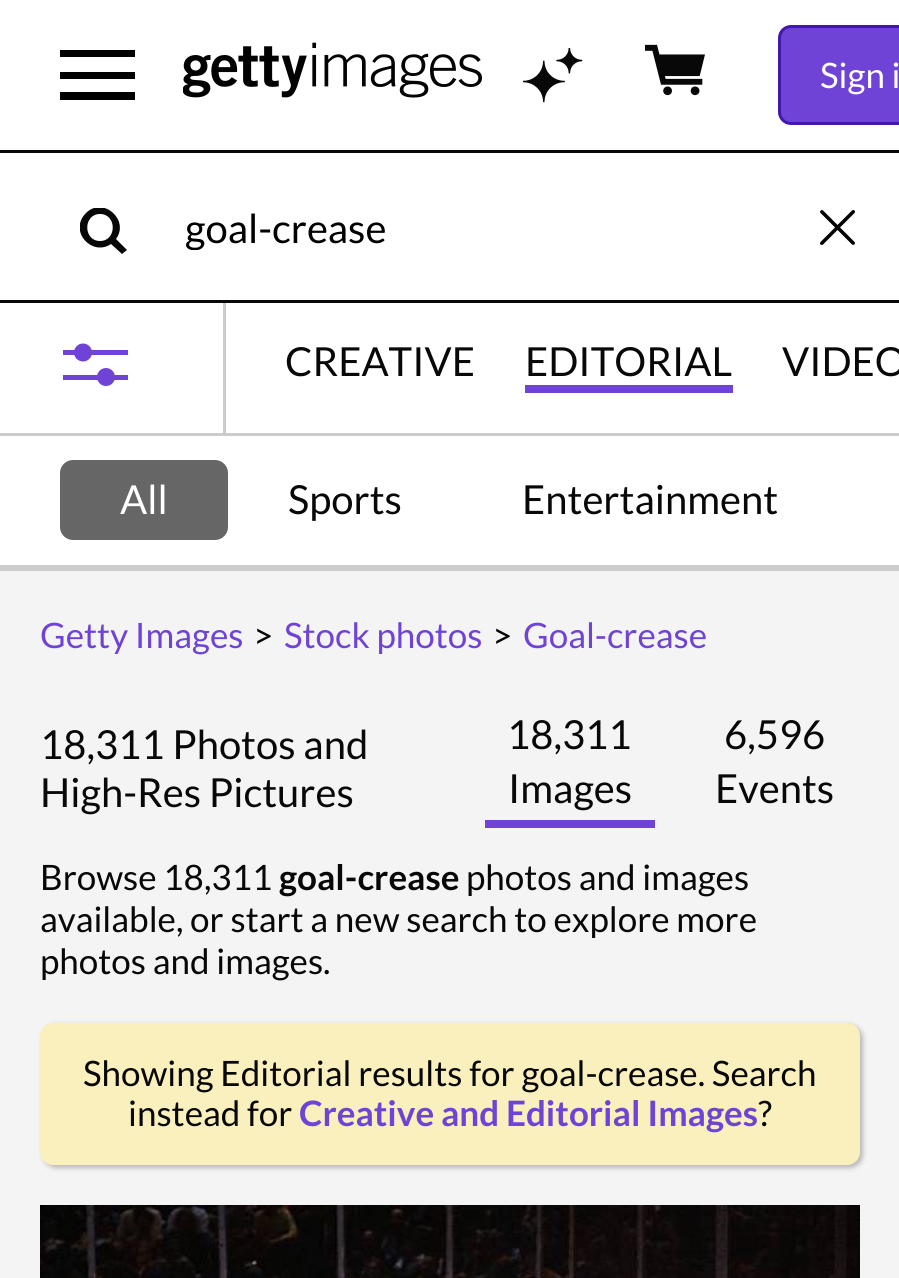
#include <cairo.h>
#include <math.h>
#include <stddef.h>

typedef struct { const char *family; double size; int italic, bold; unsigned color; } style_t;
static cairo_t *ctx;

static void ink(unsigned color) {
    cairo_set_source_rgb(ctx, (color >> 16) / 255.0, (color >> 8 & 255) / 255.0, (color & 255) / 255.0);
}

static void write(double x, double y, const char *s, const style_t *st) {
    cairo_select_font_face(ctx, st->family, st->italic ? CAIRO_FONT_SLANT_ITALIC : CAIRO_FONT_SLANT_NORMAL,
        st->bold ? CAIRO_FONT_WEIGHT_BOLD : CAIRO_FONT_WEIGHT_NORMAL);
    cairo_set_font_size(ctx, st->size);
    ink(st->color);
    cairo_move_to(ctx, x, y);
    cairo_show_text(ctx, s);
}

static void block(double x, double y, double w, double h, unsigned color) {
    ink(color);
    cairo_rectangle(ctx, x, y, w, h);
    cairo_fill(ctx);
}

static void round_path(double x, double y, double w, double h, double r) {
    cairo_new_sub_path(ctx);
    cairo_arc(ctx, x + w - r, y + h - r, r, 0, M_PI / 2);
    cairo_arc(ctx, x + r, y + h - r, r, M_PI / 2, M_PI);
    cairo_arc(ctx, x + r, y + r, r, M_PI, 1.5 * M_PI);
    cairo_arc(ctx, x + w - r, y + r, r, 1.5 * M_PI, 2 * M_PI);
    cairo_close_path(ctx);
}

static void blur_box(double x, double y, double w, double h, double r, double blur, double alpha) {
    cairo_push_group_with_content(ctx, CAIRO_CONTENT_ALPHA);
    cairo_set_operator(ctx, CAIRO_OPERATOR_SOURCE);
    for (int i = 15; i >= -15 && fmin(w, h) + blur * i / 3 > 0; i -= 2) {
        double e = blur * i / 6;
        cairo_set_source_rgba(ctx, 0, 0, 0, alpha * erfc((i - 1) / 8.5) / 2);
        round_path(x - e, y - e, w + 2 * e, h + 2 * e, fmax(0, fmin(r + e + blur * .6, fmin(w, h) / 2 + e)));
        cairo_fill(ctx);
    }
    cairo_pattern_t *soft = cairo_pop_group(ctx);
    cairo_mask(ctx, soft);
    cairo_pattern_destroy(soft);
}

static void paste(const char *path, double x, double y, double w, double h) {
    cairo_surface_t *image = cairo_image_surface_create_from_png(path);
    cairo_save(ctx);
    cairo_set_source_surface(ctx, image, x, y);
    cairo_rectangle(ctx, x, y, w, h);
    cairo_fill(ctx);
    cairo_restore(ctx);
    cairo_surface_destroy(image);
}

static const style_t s1 = {"Lato", 35, 0, 0, 0xffffff};
static const style_t s2 = {"Lato", 40, 0, 0, 0x000000};
static const style_t s3 = {"Lato", 40, 0, 0, 0x080808};
static const style_t s4 = {"Lato", 40, 0, 0, 0xffffff};
static const style_t s5 = {"Lato", 35, 0, 0, 0x6f43d6};
static const style_t s6 = {"Lato", 35, 0, 0, 0x080808};
static const style_t s7 = {"Lato", 35, 0, 1, 0x080808};
static const style_t s8 = {"Lato", 35, 0, 1, 0x6f43d6};

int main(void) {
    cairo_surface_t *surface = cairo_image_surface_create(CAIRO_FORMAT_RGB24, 899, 1278);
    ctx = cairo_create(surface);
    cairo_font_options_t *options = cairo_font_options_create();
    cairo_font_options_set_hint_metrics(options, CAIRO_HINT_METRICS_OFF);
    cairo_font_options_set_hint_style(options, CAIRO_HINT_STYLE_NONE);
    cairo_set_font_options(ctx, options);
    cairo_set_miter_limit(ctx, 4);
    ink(0xffffff);
    cairo_paint(ctx);
    ink(0x000000);
    cairo_new_path(ctx);
    cairo_move_to(ctx, 60, 50);
    cairo_line_to(ctx, 135, 50);
    cairo_line_to(ctx, 135, 57);
    cairo_line_to(ctx, 60, 57);
    cairo_close_path(ctx);
    cairo_move_to(ctx, 60, 72);
    cairo_line_to(ctx, 135, 72);
    cairo_line_to(ctx, 135, 79);
    cairo_line_to(ctx, 60, 79);
    cairo_close_path(ctx);
    cairo_move_to(ctx, 60, 92);
    cairo_line_to(ctx, 135, 92);
    cairo_line_to(ctx, 135, 100);
    cairo_line_to(ctx, 60, 100);
    cairo_close_path(ctx);
    cairo_fill(ctx);
    paste("pic1.png", 183, 42, 299, 56);
    paste("pic2.png", 523, 48, 60, 55);
    paste("pic3.png", 645, 44, 60, 52);
    ink(0x6f43d6);
    round_path(779.5, 26.5, 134, 97, 11.5);
    cairo_fill_preserve(ctx);
    ink(0x4316ac);
    cairo_set_line_width(ctx, 3);
    cairo_stroke(ctx);
    write(820, 88, "Sign i", &s1);
    block(0, 571, 899, 707, 0xf4f4f4);
    block(0, 150, 899, 3, 0x080808);
    block(223, 298, 3, 135, 0xcccccc);
    block(0, 300, 899, 3, 0x080808);
    block(223, 298, 3, 2, 0xffffff);
    cairo_save(ctx);
    cairo_rectangle(ctx, 80, 208, 50, 50);
    cairo_clip(ctx);
    ink(0x080808);
    cairo_new_path(ctx);
    cairo_move_to(ctx, 127, 250);
    cairo_line_to(ctx, 116, 239);
    cairo_curve_to(ctx, 130, 220, 103, 196, 86, 213);
    cairo_curve_to(ctx, 68, 231, 92, 257, 111, 244);
    cairo_line_to(ctx, 122, 254);
    cairo_close_path(ctx);
    cairo_move_to(ctx, 100, 241);
    cairo_curve_to(ctx, 83, 241, 83, 214, 100, 214);
    cairo_curve_to(ctx, 117, 214, 117, 241, 100, 241);
    cairo_close_path(ctx);
    cairo_fill(ctx);
    cairo_restore(ctx);
    cairo_save(ctx);
    cairo_rectangle(ctx, 185, 203, 618, 47);
    cairo_clip(ctx);
    write(185, 243, "goal-crease", &s2);
    cairo_restore(ctx);
    paste("pic4.png", 820, 210, 35, 35);
    block(0, 565, 899, 6, 0xcccccc);
    cairo_save(ctx);
    cairo_rectangle(ctx, 63, 343, 65, 45);
    cairo_clip(ctx);
    ink(0x6f43d6);
    cairo_new_path(ctx);
    cairo_move_to(ctx, 128, 355);
    cairo_line_to(ctx, 62, 355);
    cairo_line_to(ctx, 62, 350);
    cairo_line_to(ctx, 128, 350);
    cairo_close_path(ctx);
    cairo_move_to(ctx, 128, 380);
    cairo_line_to(ctx, 62, 380);
    cairo_line_to(ctx, 62, 375);
    cairo_line_to(ctx, 128, 375);
    cairo_close_path(ctx);
    cairo_fill(ctx);
    cairo_restore(ctx);
    ink(0x6f43d6);
    cairo_arc(ctx, 83, 352.5, 9, 0, 2 * M_PI);
    cairo_fill(ctx);
    cairo_arc(ctx, 106, 377, 9, 0, 2 * M_PI);
    cairo_fill(ctx);
    write(285, 376, "CREATIVE", &s3);
    block(525, 385, 208, 8, 0x6f43d6);
    write(525, 376, "EDITORIAL", &s3);
    write(782, 376, "VIDEO", &s3);
    block(0, 433, 899, 3, 0xcccccc);
    ink(0x666666);
    round_path(60, 460, 168, 80, 13);
    cairo_fill(ctx);
    write(120, 514, "All", &s4);
    write(288, 514, "Sports", &s3);
    write(522, 514, "Entertainment", &s3);
    write(40, 648, "Getty Images", &s5);
    write(253, 648, ">", &s6);
    write(284, 648, "Stock photos", &s5);
    write(492, 648, ">", &s6);
    write(523, 648, "Goal-crease", &s5);
    write(40, 759, "18,311 Photos and", &s3);
    write(40, 807, "High-Res Pictures", &s3);
    write(507, 749, "18,311", &s3);
    write(508, 803, "Images", &s3);
    block(485, 820, 170, 8, 0x6f43d6);
    write(724, 749, "6,596", &s3);
    write(715, 803, "Events", &s3);
    write(40, 890, "Browse 18,311", &s6);
    write(279, 890, "goal-crease", &s7);
    write(466, 890, "photos and images", &s6);
    write(40, 932, "available, or start a new search to explore more", &s6);
    write(40, 974, "photos and images.", &s6);
    ink(0x000000);
    blur_box(43, 1025, 820, 143, 13, 2.5, 0.25);
    ink(0xf9f0bd);
    round_path(40, 1023, 820, 142, 13);
    cairo_fill(ctx);
    write(83, 1086, "Showing Editorial results for goal-crease. Search", &s6);
    write(128, 1126, "instead for", &s6);
    write(299, 1126, "Creative and Editorial Images", &s8);
    write(758, 1126, "?", &s6);
    paste("pic5.png", 40, 1205, 820, 73);
    cairo_surface_write_to_png(surface, "screenshot.png");
    cairo_font_options_destroy(options);
    cairo_destroy(ctx);
    cairo_surface_destroy(surface);
    return 0;
}
